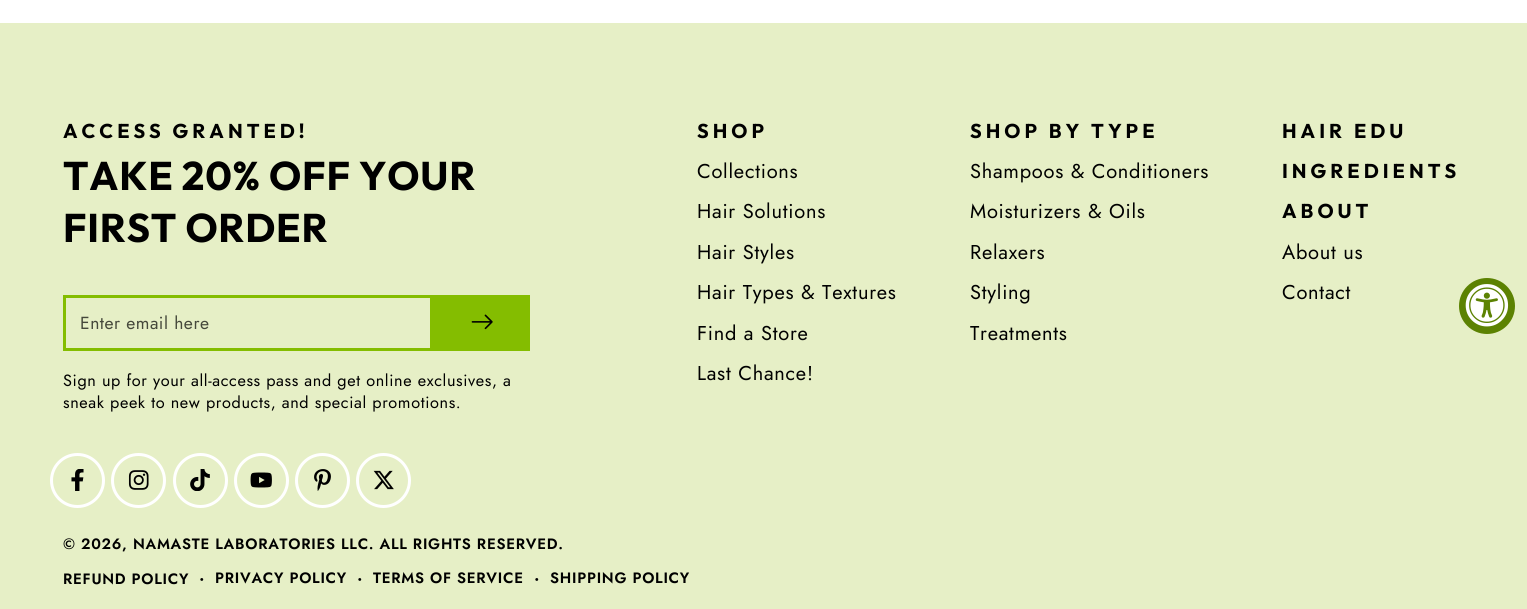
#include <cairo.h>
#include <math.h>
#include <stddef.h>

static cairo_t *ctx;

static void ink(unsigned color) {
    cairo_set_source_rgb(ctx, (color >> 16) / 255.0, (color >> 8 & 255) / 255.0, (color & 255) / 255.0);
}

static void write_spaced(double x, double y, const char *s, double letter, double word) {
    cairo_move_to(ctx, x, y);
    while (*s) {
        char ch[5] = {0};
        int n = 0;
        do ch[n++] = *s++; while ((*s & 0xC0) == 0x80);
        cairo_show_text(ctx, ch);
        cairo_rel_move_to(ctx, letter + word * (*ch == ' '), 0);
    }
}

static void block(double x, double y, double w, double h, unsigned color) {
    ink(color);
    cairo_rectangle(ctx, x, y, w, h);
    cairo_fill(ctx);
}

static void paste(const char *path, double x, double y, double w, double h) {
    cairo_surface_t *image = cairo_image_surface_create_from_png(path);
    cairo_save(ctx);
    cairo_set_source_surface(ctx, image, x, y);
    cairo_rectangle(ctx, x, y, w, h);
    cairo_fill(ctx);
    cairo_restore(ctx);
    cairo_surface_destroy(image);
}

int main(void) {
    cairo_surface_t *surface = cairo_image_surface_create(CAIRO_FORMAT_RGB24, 1527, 609);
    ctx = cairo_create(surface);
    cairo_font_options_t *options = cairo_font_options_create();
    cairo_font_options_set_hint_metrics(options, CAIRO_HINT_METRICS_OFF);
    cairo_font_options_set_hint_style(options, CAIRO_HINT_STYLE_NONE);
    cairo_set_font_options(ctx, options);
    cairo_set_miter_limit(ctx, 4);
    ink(0xffffff);
    cairo_paint(ctx);
    block(0, 23, 1527, 586, 0xe6efc6);
    cairo_select_font_face(ctx, "Outfit", CAIRO_FONT_SLANT_NORMAL, CAIRO_FONT_WEIGHT_BOLD);
    cairo_set_font_size(ctx, 20);
    ink(0x000000);
    write_spaced(63, 138, "ACCESS GRANTED!", 4, 0);
    cairo_set_font_size(ctx, 40);
    write_spaced(63, 190, "TAKE 20% OFF YOUR", 0.75, 0);
    write_spaced(63, 242, "FIRST ORDER", 0.75, 0);
    cairo_rectangle(ctx, 64.5, 296.5, 464, 53);
    ink(0x84bd00);
    cairo_set_line_width(ctx, 3);
    cairo_stroke(ctx);
    cairo_select_font_face(ctx, "Jost", CAIRO_FONT_SLANT_NORMAL, CAIRO_FONT_WEIGHT_NORMAL);
    cairo_set_font_size(ctx, 17.5);
    ink(0x45483b);
    write_spaced(80, 329, "Enter email here", 0.5, 0);
    block(430, 298, 97, 50, 0x84bd00);
    paste("pic1.png", 471, 314, 22, 16);
    cairo_set_font_size(ctx, 16.25);
    ink(0x000000);
    write_spaced(63, 386, "Sign up for your all-access pass and get online exclusives, a", 0.62, 0);
    write_spaced(63, 408, "sneak peek to new products, and special promotions.", 0.62, 0);
    cairo_new_path(ctx);
    cairo_arc(ctx, 77.5, 480.5, 26, 0, 2 * M_PI);
    ink(0xffffff);
    cairo_stroke(ctx);
    paste("pic2.png", 71, 469, 13, 22);
    cairo_arc(ctx, 138.5, 480.5, 26, 0, 2 * M_PI);
    cairo_stroke(ctx);
    paste("pic3.png", 128, 470, 21, 20);
    cairo_arc(ctx, 200.5, 480.5, 26, 0, 2 * M_PI);
    cairo_stroke(ctx);
    paste("pic4.png", 190, 469, 20, 22);
    cairo_arc(ctx, 261.5, 480.5, 26, 0, 2 * M_PI);
    cairo_stroke(ctx);
    paste("pic5.png", 250, 472, 22, 16);
    cairo_arc(ctx, 322.5, 480.5, 26, 0, 2 * M_PI);
    cairo_stroke(ctx);
    paste("pic6.png", 314, 469, 17, 22);
    cairo_arc(ctx, 383.5, 480.5, 26, 0, 2 * M_PI);
    cairo_stroke(ctx);
    paste("pic7.png", 373, 470, 21, 20);
    cairo_select_font_face(ctx, "Outfit", CAIRO_FONT_SLANT_NORMAL, CAIRO_FONT_WEIGHT_BOLD);
    cairo_set_font_size(ctx, 20);
    ink(0x000000);
    write_spaced(697, 138, "SHOP", 4, 0);
    cairo_select_font_face(ctx, "Jost", CAIRO_FONT_SLANT_NORMAL, CAIRO_FONT_WEIGHT_NORMAL);
    write_spaced(697, 178, "Collections", 0.75, 0);
    write_spaced(697, 218, "Hair Solutions", 0.75, 0);
    write_spaced(697, 259, "Hair Styles", 0.75, 0);
    write_spaced(697, 299, "Hair Types & Textures", 0.75, 0);
    write_spaced(697, 340, "Find a Store", 0.75, 0);
    write_spaced(697, 380, "Last Chance!", 0.75, 0);
    cairo_select_font_face(ctx, "Outfit", CAIRO_FONT_SLANT_NORMAL, CAIRO_FONT_WEIGHT_BOLD);
    write_spaced(970, 138, "SHOP BY TYPE", 4, 0);
    cairo_select_font_face(ctx, "Jost", CAIRO_FONT_SLANT_NORMAL, CAIRO_FONT_WEIGHT_NORMAL);
    write_spaced(970, 178, "Shampoos & Conditioners", 0.75, 0);
    write_spaced(970, 218, "Moisturizers & Oils", 0.75, 0);
    write_spaced(970, 259, "Relaxers", 0.75, 0);
    write_spaced(970, 299, "Styling", 0.75, 0);
    write_spaced(970, 340, "Treatments", 0.75, 0);
    cairo_select_font_face(ctx, "Outfit", CAIRO_FONT_SLANT_NORMAL, CAIRO_FONT_WEIGHT_BOLD);
    write_spaced(1282, 138, "HAIR EDU", 4, 0);
    write_spaced(1282, 178, "INGREDIENTS", 4, 0);
    write_spaced(1282, 218, "ABOUT", 4, 0);
    cairo_select_font_face(ctx, "Jost", CAIRO_FONT_SLANT_NORMAL, CAIRO_FONT_WEIGHT_NORMAL);
    write_spaced(1282, 259, "About us", 0.75, 0);
    write_spaced(1282, 299, "Contact", 0.75, 0);
    cairo_select_font_face(ctx, "Jost SemiBold", CAIRO_FONT_SLANT_NORMAL, CAIRO_FONT_WEIGHT_NORMAL);
    cairo_set_font_size(ctx, 15);
    write_spaced(63, 549, "© 2026, NAMASTE LABORATORIES LLC. ALL RIGHTS RESERVED.", 0.75, 0);
    write_spaced(63, 584, "REFUND POLICY", 0.75, 0);
    cairo_set_font_size(ctx, 17.5);
    write_spaced(199, 584, "·", 0.75, 0);
    cairo_set_font_size(ctx, 15);
    write_spaced(215, 583, "PRIVACY POLICY", 0.75, 0);
    cairo_set_font_size(ctx, 17.5);
    write_spaced(357, 584, "·", 0.75, 0);
    cairo_set_font_size(ctx, 15);
    write_spaced(373, 583, "TERMS OF SERVICE", 0.75, 0);
    cairo_set_font_size(ctx, 17.5);
    write_spaced(534, 584, "·", 0.75, 0);
    cairo_set_font_size(ctx, 15);
    write_spaced(550, 583, "SHIPPING POLICY", 0.75, 0);
    ink(0x5c8202);
    cairo_new_path(ctx);
    cairo_arc(ctx, 1487, 306, 28, 0, 2 * M_PI);
    cairo_fill(ctx);
    paste("pic8.png", 1465, 284, 44, 43);
    cairo_surface_write_to_png(surface, "screenshot.png");
    cairo_font_options_destroy(options);
    cairo_destroy(ctx);
    cairo_surface_destroy(surface);
    return 0;
}
